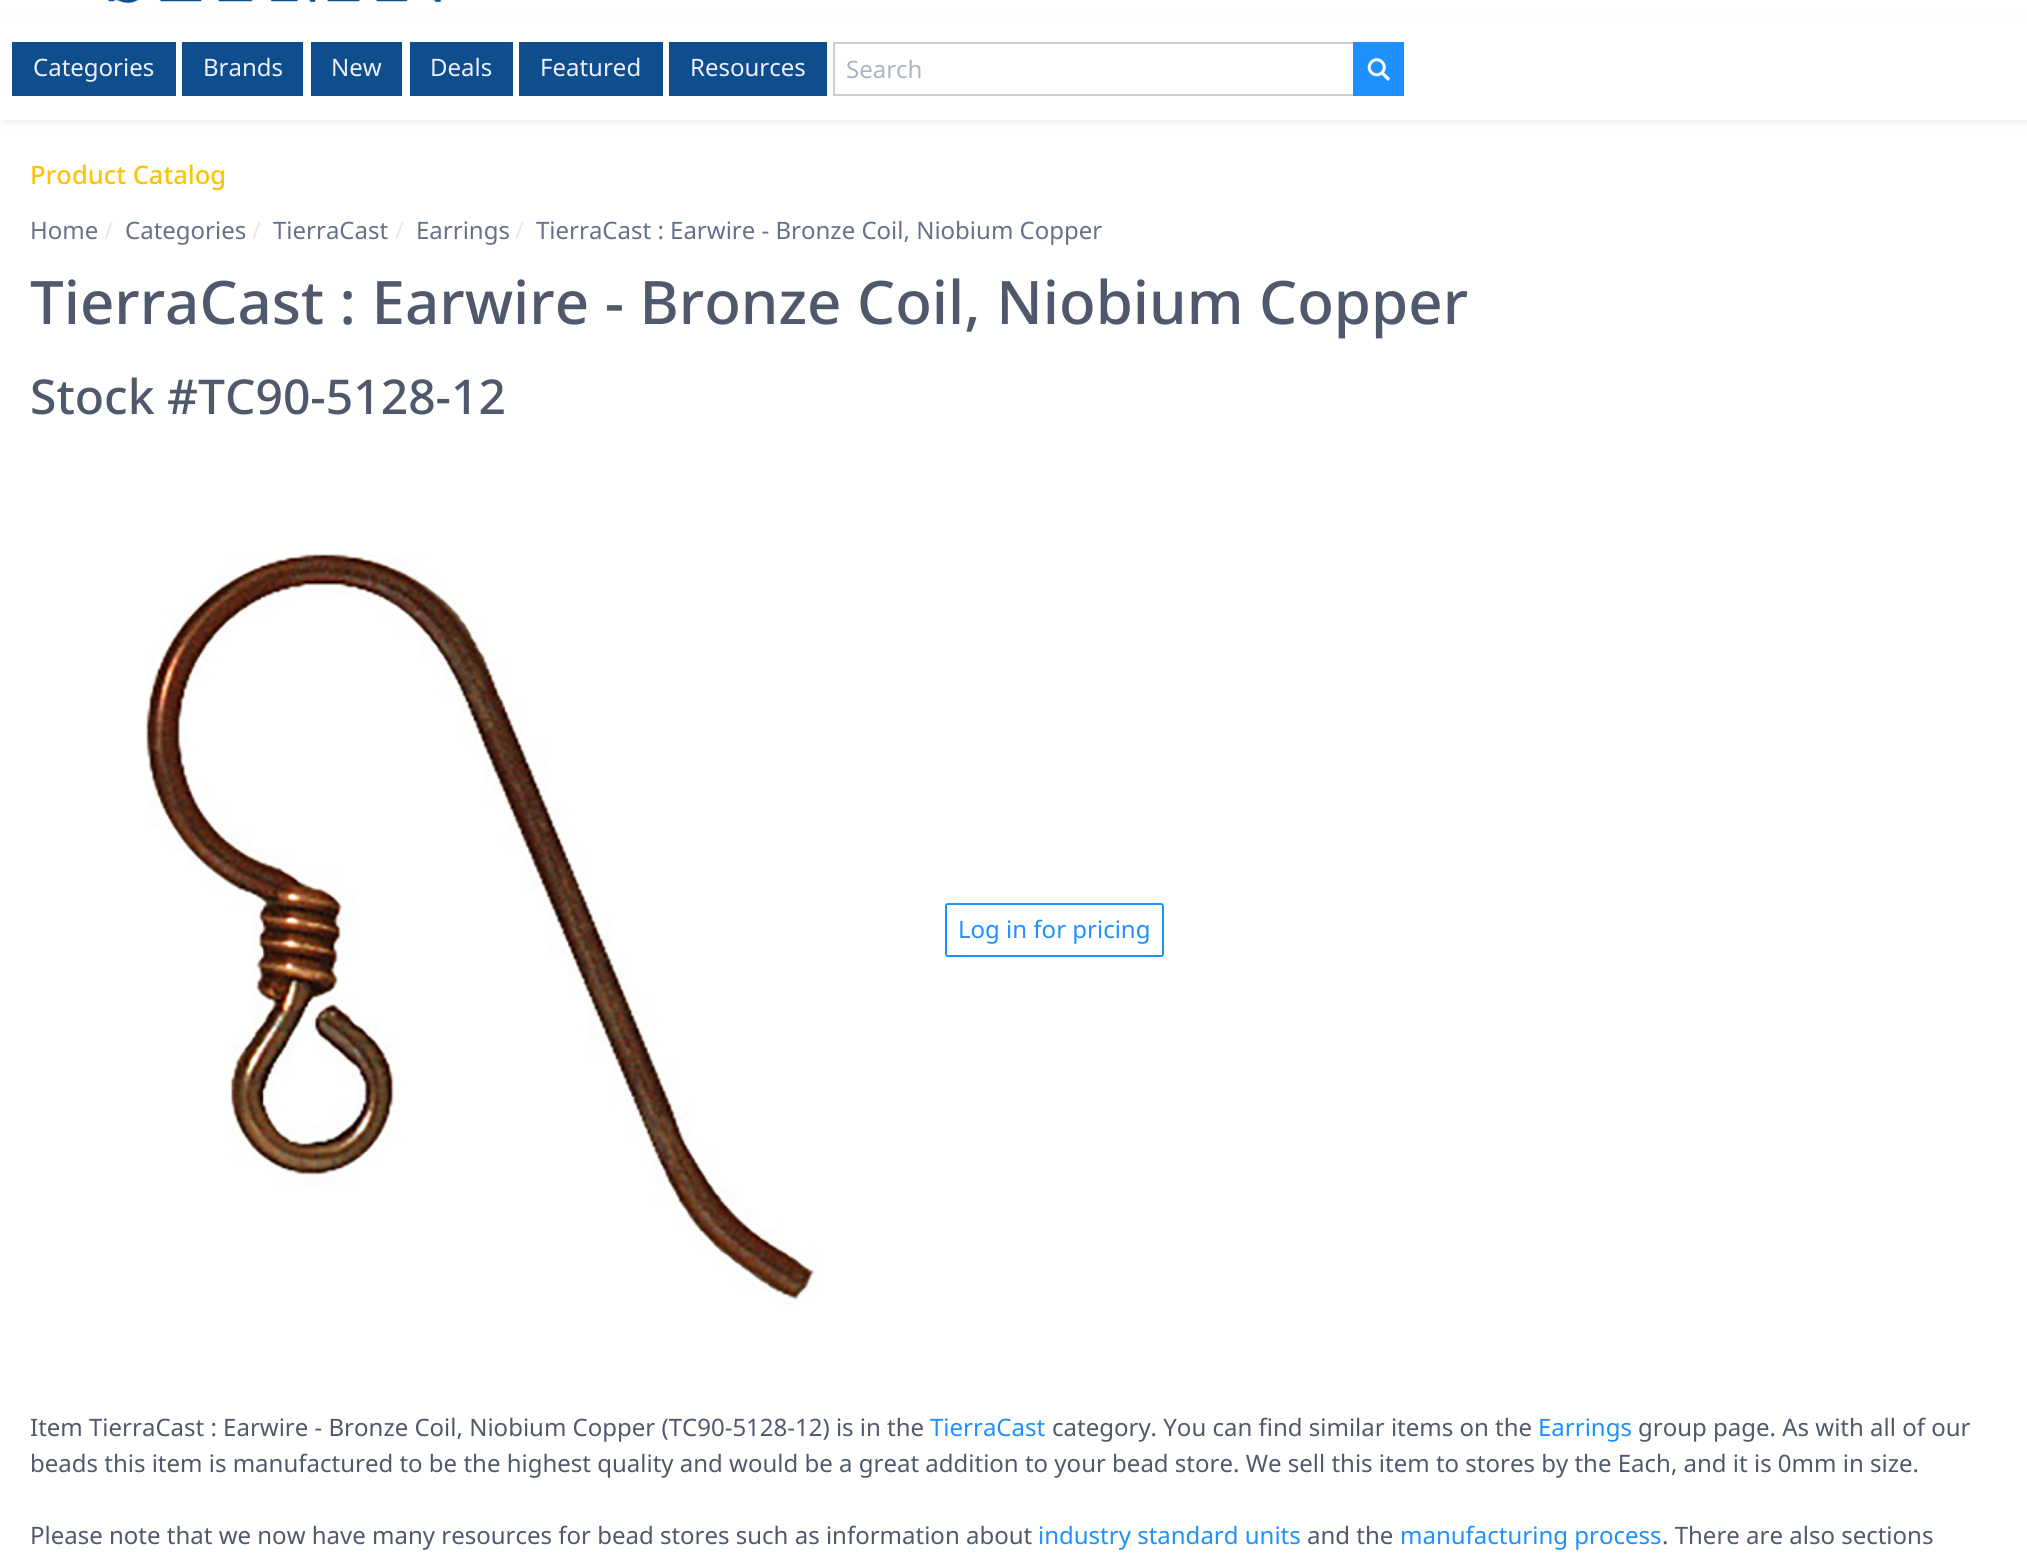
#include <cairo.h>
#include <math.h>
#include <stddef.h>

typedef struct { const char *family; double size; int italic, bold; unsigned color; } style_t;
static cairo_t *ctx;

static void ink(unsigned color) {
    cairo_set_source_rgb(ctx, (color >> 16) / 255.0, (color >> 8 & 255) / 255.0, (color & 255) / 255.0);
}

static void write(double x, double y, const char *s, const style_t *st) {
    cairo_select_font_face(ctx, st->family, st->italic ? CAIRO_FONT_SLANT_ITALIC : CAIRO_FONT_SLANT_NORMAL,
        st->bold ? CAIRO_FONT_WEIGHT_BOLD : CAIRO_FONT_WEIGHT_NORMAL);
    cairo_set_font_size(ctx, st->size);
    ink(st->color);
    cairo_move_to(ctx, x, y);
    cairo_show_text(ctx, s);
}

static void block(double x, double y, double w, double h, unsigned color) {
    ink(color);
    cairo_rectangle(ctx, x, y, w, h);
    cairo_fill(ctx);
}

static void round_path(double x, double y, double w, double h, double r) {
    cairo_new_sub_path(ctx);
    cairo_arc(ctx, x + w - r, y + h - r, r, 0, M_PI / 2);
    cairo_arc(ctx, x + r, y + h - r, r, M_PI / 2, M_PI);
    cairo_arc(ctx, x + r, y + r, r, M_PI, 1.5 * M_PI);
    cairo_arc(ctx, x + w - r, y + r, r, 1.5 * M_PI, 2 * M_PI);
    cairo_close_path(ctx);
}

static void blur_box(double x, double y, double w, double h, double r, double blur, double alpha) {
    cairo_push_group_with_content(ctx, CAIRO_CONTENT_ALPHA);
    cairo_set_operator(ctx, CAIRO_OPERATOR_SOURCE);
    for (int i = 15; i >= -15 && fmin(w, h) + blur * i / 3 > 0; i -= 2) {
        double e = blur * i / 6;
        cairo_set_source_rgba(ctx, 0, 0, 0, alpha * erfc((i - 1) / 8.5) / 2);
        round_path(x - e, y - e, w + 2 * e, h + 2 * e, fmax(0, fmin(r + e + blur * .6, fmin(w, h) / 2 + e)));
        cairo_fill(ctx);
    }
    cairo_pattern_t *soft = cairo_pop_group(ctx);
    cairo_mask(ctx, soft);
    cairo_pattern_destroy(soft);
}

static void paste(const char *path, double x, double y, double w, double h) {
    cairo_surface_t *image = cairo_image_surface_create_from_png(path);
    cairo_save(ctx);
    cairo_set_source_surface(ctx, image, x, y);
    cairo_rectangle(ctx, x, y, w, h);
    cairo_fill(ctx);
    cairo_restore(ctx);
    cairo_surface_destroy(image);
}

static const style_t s1 = {"Noto Sans", 24, 0, 0, 0xeeeeff};
static const style_t s2 = {"Noto Sans", 24, 0, 0, 0xacb3c2};
static const style_t s3 = {"Noto Sans Medium", 25.5, 0, 0, 0xffc309};
static const style_t s4 = {"Noto Sans", 24, 0, 0, 0x667189};
static const style_t s5 = {"Noto Sans", 24, 0, 0, 0xe7e9ed};
static const style_t s6 = {"Noto Sans Medium", 60, 0, 0, 0x50596c};
static const style_t s7 = {"Noto Sans Medium", 48, 0, 0, 0x50596c};
static const style_t s8 = {"Noto Sans", 24, 0, 0, 0x1e90ff};
static const style_t s9 = {"Noto Sans", 24, 0, 0, 0x50596c};

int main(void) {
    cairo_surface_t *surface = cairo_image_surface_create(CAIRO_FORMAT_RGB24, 2027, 1554);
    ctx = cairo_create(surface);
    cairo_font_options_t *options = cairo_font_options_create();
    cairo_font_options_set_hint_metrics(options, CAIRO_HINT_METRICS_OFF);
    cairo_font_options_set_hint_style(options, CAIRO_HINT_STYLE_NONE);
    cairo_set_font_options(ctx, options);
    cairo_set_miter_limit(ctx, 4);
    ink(0xffffff);
    cairo_paint(ctx);
    paste("pic1.png", 107, 0, 335, 3);
    cairo_save(ctx);
    cairo_set_fill_rule(ctx, CAIRO_FILL_RULE_EVEN_ODD);
    cairo_new_path(ctx);
    cairo_move_to(ctx, 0, 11);
    cairo_line_to(ctx, 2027, 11);
    cairo_line_to(ctx, 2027, 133);
    cairo_line_to(ctx, 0, 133);
    cairo_close_path(ctx);
    cairo_move_to(ctx, 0, 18);
    cairo_line_to(ctx, 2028, 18);
    cairo_line_to(ctx, 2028, 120);
    cairo_line_to(ctx, 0, 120);
    cairo_close_path(ctx);
    cairo_clip(ctx);
    ink(0xededed);
    blur_box(3, 21, 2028, 102, 0, 3, 1);
    cairo_restore(ctx);
    block(12, 42, 164, 54, 0x0f4e8c);
    write(33, 76, "Categories", &s1);
    block(182, 42, 121, 54, 0x0f4e8c);
    write(203, 76, "Brands", &s1);
    block(311, 42, 91, 54, 0x0f4e8c);
    write(331, 76, "New", &s1);
    block(410, 42, 103, 54, 0x0f4e8c);
    write(430, 76, "Deals", &s1);
    block(519, 42, 144, 54, 0x0f4e8c);
    write(540, 76, "Featured", &s1);
    block(669, 42, 158, 54, 0x0f4e8c);
    write(690, 76, "Resources", &s1);
    cairo_rectangle(ctx, 834, 43, 520, 52);
    ink(0xcaced7);
    cairo_stroke(ctx);
    write(846, 78, "Search", &s2);
    block(1353, 42, 51, 54, 0x1e90ff);
    cairo_new_path(ctx);
    cairo_move_to(ctx, 1382, 62);
    cairo_curve_to(ctx, 1389, 69, 1378.5, 79.5, 1371.5, 72.5);
    cairo_curve_to(ctx, 1364.5, 65.5, 1375, 55, 1382, 62);
    cairo_close_path(ctx);
    ink(0xffffff);
    cairo_set_line_width(ctx, 3);
    cairo_stroke(ctx);
    cairo_new_path(ctx);
    cairo_move_to(ctx, 1383.5, 72);
    cairo_line_to(ctx, 1390, 78.5);
    cairo_line_to(ctx, 1388, 81);
    cairo_line_to(ctx, 1381, 74);
    cairo_close_path(ctx);
    cairo_fill(ctx);
    write(30, 184, "Product Catalog", &s3);
    write(30, 239, "Home", &s4);
    write(104, 239, "/", &s5);
    write(125, 239, "Categories", &s4);
    write(252, 239, "/", &s5);
    write(273, 239, "TierraCast", &s4);
    write(395, 239, "/", &s5);
    write(416, 239, "Earrings", &s4);
    write(515, 239, "/", &s5);
    write(536, 239, "TierraCast : Earwire - Bronze Coil, Niobium Copper", &s4);
    write(30, 324, "TierraCast : Earwire - Bronze Coil, Niobium Copper", &s6);
    write(30, 414, "Stock #TC90-5128-12", &s7);
    paste("pic2.png", 146, 554, 676, 751);
    round_path(946, 904, 217, 52, 2);
    ink(0x1e90ff);
    cairo_set_line_width(ctx, 2);
    cairo_stroke(ctx);
    write(958, 938, "Log in for pricing", &s8);
    write(30, 1436, "Item TierraCast : Earwire - Bronze Coil, Niobium Copper (TC90-5128-12) is in the", &s9);
    write(930, 1436, "TierraCast", &s8);
    write(1052, 1436, "category. You can find similar items on the", &s9);
    write(1538, 1436, "Earrings", &s8);
    write(1638, 1436, "group page. As with all of our", &s9);
    write(30, 1472, "beads this item is manufactured to be the highest quality and would be a great addition to your bead store. We sell this item to stores by the Each, and it is 0mm in size.", &s9);
    write(30, 1544, "Please note that we now have many resources for bead stores such as information about", &s9);
    write(1038, 1544, "industry standard units", &s8);
    write(1307, 1544, "and the", &s9);
    write(1400, 1544, "manufacturing process", &s8);
    write(1662, 1544, ". There are also sections", &s9);
    cairo_surface_write_to_png(surface, "screenshot.png");
    cairo_font_options_destroy(options);
    cairo_destroy(ctx);
    cairo_surface_destroy(surface);
    return 0;
}
